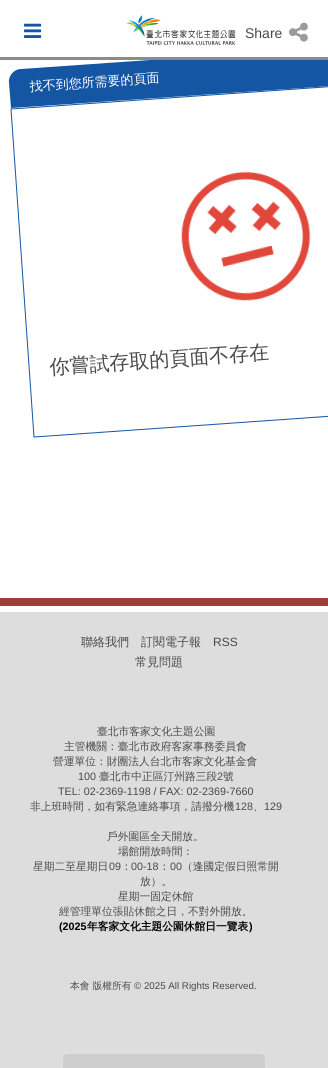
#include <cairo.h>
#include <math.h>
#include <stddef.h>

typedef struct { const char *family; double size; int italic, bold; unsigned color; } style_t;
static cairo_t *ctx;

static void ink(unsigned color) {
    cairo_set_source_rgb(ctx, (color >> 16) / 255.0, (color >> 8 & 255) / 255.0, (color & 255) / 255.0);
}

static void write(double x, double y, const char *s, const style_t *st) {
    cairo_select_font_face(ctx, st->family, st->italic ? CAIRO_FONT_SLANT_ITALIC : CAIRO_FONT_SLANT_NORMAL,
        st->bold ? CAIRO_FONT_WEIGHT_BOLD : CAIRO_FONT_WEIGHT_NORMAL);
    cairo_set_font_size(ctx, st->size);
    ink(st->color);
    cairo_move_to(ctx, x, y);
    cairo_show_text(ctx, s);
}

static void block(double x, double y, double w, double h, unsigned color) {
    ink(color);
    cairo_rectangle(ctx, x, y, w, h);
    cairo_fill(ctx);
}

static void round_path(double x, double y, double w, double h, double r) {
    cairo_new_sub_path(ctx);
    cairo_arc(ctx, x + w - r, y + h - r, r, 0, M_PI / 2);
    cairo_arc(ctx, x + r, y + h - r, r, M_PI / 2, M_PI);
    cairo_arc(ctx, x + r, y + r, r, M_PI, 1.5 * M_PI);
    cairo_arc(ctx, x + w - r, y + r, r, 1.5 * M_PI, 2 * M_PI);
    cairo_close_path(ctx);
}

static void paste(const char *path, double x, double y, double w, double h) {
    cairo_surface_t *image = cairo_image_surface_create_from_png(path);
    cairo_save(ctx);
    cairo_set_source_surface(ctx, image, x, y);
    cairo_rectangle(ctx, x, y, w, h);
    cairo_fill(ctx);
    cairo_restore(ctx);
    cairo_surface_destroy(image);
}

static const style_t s1 = {"Liberation Sans", 14, 0, 0, 0x4a4a4a};
static const style_t s2 = {"WenQuanYi Zen Hei Medium", 13, 0, 0, 0xffffff};
static const style_t s3 = {"WenQuanYi Zen Hei Medium", 20, 0, 0, 0x4a4a4a};
static const style_t s4 = {"WenQuanYi Zen Hei Medium", 12, 0, 0, 0x4a4a4a};
static const style_t s5 = {"Liberation Sans", 12, 0, 0, 0x4a4a4a};
static const style_t s6 = {"WenQuanYi Zen Hei Medium", 10.75, 0, 0, 0x4a4a4a};
static const style_t s7 = {"Liberation Sans", 10.75, 0, 0, 0x4a4a4a};
static const style_t s8 = {"Liberation Sans", 10.75, 0, 1, 0x000000};
static const style_t s9 = {"WenQuanYi Zen Hei", 10.75, 0, 1, 0x000000};
static const style_t s10 = {"WenQuanYi Zen Hei Medium", 9.75, 0, 0, 0x4a4a4a};
static const style_t s11 = {"Liberation Sans", 9.75, 0, 0, 0x4a4a4a};

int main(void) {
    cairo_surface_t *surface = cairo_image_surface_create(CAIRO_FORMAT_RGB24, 328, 1068);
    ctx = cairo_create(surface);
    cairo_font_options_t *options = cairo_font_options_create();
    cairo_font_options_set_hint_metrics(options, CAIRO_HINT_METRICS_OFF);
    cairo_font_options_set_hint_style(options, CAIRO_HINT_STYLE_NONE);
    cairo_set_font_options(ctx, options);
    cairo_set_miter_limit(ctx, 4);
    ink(0xffffff);
    cairo_paint(ctx);
    ink(0x1456a4);
    cairo_new_path(ctx);
    cairo_move_to(ctx, 21, 69);
    cairo_line_to(ctx, 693, 22);
    cairo_curve_to(ctx, 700, 21, 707, 27, 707, 34);
    cairo_line_to(ctx, 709, 60);
    cairo_line_to(ctx, 11, 108);
    cairo_line_to(ctx, 9, 83);
    cairo_curve_to(ctx, 8, 76, 14, 69, 21, 69);
    cairo_close_path(ctx);
    cairo_fill(ctx);
    block(193, 47, 135, 10, 0xffffff);
    block(0, 57, 328, 3, 0x8c8a8a);
    paste("pic1.png", 24, 23, 18, 15);
    paste("pic2.png", 126, 15, 110, 30);
    write(245, 38, "Share", &s1);
    paste("pic3.png", 289, 22, 19, 20);
    cairo_new_path(ctx);
    cairo_move_to(ctx, 11, 109);
    cairo_line_to(ctx, 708.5, 60);
    cairo_line_to(ctx, 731.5, 388);
    cairo_line_to(ctx, 34, 437);
    cairo_close_path(ctx);
    ink(0x1456a4);
    cairo_set_line_width(ctx, 1);
    cairo_stroke(ctx);
    cairo_save(ctx);
    cairo_translate(ctx, 30, 91);
    cairo_rotate(ctx, -4 * M_PI / 180);
    write(0, 0, "找不到您所需要的頁面", &s2);
    cairo_restore(ctx);
    paste("pic4.png", 181, 171, 130, 130);
    cairo_save(ctx);
    cairo_translate(ctx, 50, 374);
    cairo_rotate(ctx, -4 * M_PI / 180);
    write(0, 0, "你嘗試存取的頁面不存在", &s3);
    cairo_restore(ctx);
    block(0, 612, 328, 456, 0xdddddd);
    block(0, 598, 328, 8, 0x9c3d36);
    write(81, 646, "聯絡我們", &s4);
    write(141, 646, "訂閱電子報", &s4);
    write(213, 646, "RSS", &s5);
    write(135, 666, "常見問題", &s4);
    write(97, 735, "臺北市客家文化主題公園", &s6);
    write(64, 750, "主管機關：臺北市政府客家事務委員會", &s6);
    write(53, 765, "營運單位：財團法人台北市客家文化基金會", &s6);
    write(78, 780, "100", &s7);
    write(99, 780, "臺北市中正區汀州路三段", &s6);
    write(217, 780, "2", &s7);
    write(223, 780, "號", &s6);
    write(58, 795, "TEL: 02-2369-1198 / FAX: 02-2369-7660", &s7);
    write(30, 810, "非上班時間，如有緊急連絡事項，請撥分機", &s6);
    write(235, 810, "128", &s7);
    write(253, 810, "、", &s6);
    write(264, 810, "129", &s7);
    write(107, 840, "戶外園區全天開放。", &s6);
    write(118, 855, "場館開放時間：", &s6);
    write(33, 870, "星期二至星期日", &s6);
    write(109, 870, "09", &s7);
    write(121, 870, "：", &s6);
    write(131, 870, "00-18", &s7);
    write(159, 870, "：", &s6);
    write(170, 870, "00", &s7);
    write(182, 870, "（逢國定假日照常開", &s6);
    write(140, 885, "放）。", &s6);
    write(118, 900, "星期一固定休館", &s6);
    write(59, 915, "經管理單位張貼休館之日，不對外開放。", &s6);
    write(59, 930, "(2025", &s8);
    write(87, 930, "年客家文化主題公園休館日一覽表", &s9);
    write(249, 930, ")", &s8);
    write(70, 989, "本會 版權所有", &s10);
    write(134, 989, "© 2025 All Rights Reserved.", &s11);
    ink(0xcecece);
    round_path(63, 1054, 202, 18, 4);
    cairo_fill(ctx);
    cairo_surface_write_to_png(surface, "screenshot.png");
    cairo_font_options_destroy(options);
    cairo_destroy(ctx);
    cairo_surface_destroy(surface);
    return 0;
}
